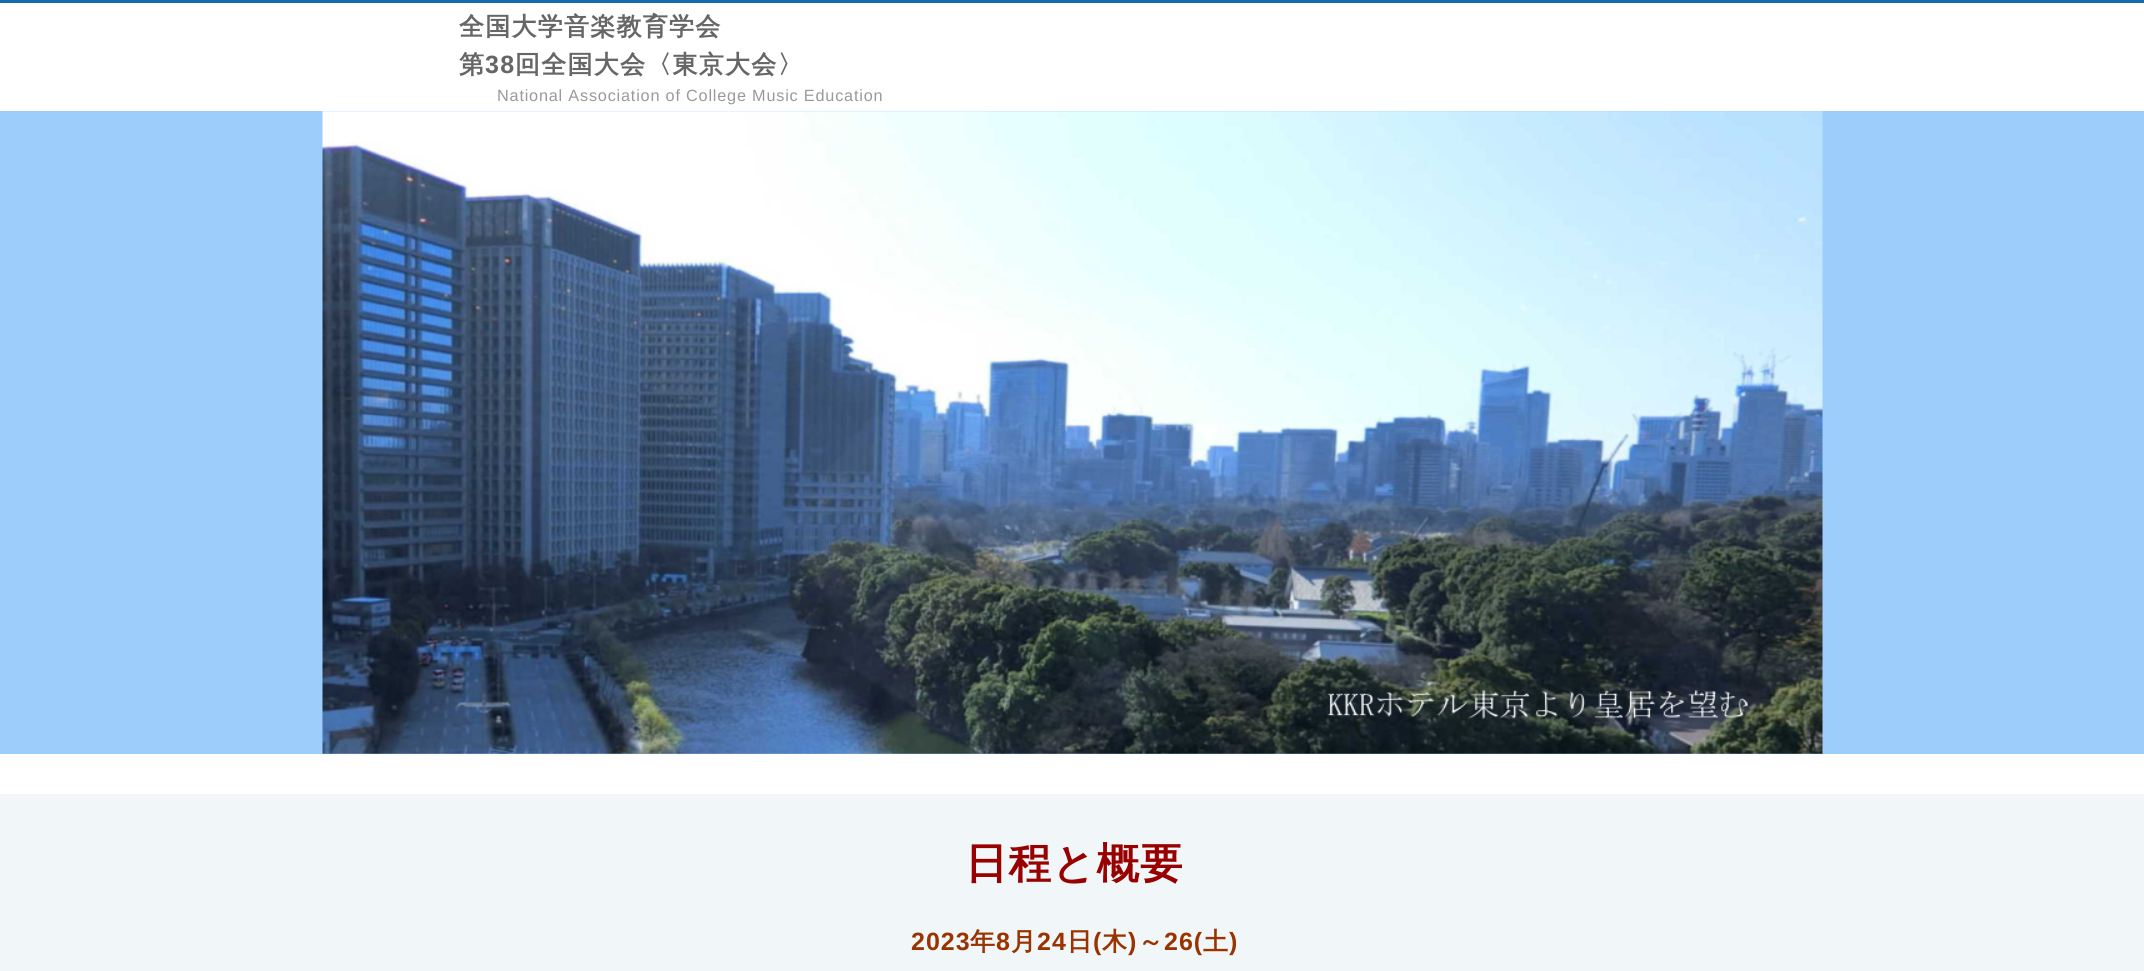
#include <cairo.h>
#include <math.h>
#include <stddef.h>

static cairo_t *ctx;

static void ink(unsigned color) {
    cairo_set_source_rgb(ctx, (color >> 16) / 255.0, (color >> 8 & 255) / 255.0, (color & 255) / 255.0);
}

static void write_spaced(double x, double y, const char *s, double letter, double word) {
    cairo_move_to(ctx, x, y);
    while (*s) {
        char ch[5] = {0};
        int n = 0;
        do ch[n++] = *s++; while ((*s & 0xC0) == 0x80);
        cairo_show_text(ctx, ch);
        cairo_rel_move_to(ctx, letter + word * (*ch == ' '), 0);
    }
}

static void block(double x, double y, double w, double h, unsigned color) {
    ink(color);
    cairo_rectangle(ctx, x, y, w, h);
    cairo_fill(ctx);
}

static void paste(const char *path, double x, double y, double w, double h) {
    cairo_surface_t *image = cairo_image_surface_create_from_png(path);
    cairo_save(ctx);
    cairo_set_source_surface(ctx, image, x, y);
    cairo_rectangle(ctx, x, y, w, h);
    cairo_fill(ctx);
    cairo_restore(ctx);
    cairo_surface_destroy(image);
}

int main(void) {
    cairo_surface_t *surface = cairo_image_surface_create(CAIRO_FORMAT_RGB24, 2144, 971);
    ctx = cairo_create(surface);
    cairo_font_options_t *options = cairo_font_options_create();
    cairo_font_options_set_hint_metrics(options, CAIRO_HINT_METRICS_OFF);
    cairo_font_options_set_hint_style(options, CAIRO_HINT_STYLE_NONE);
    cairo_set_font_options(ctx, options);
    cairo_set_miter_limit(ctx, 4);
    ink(0xffffff);
    cairo_paint(ctx);
    block(0, 0, 2144, 3, 0x156aad);
    cairo_select_font_face(ctx, "WenQuanYi Zen Hei", CAIRO_FONT_SLANT_NORMAL, CAIRO_FONT_WEIGHT_BOLD);
    cairo_set_font_size(ctx, 25);
    ink(0x666666);
    write_spaced(459, 35, "全国大学音楽教育学会", 1.25, 0);
    write_spaced(459, 73, "第", 1.25, 0);
    cairo_select_font_face(ctx, "Liberation Sans", CAIRO_FONT_SLANT_NORMAL, CAIRO_FONT_WEIGHT_BOLD);
    write_spaced(485, 73, "38", 1.25, 0);
    cairo_select_font_face(ctx, "WenQuanYi Zen Hei", CAIRO_FONT_SLANT_NORMAL, CAIRO_FONT_WEIGHT_BOLD);
    write_spaced(515, 73, "回全国大会〈東京大会〉", 1.25, 0);
    cairo_select_font_face(ctx, "Liberation Sans", CAIRO_FONT_SLANT_NORMAL, CAIRO_FONT_WEIGHT_NORMAL);
    cairo_set_font_size(ctx, 16.25);
    ink(0x999999);
    write_spaced(497, 101, "National Association of College Music Education", 0.8, 0);
    block(0, 111, 2144, 643, 0x9dcefb);
    paste("pic1.png", 322, 111, 1501, 643);
    block(0, 794, 2144, 177, 0xf1f6f9);
    cairo_select_font_face(ctx, "WenQuanYi Zen Hei", CAIRO_FONT_SLANT_NORMAL, CAIRO_FONT_WEIGHT_BOLD);
    cairo_set_font_size(ctx, 42.5);
    ink(0x990000);
    write_spaced(965, 878, "日程と概要", 1, 0);
    cairo_select_font_face(ctx, "Liberation Sans", CAIRO_FONT_SLANT_NORMAL, CAIRO_FONT_WEIGHT_BOLD);
    cairo_set_font_size(ctx, 25);
    ink(0x993300);
    write_spaced(911, 950, "2023", 1, 0);
    cairo_select_font_face(ctx, "WenQuanYi Zen Hei", CAIRO_FONT_SLANT_NORMAL, CAIRO_FONT_WEIGHT_BOLD);
    write_spaced(970, 950, "年", 1, 0);
    cairo_select_font_face(ctx, "Liberation Sans", CAIRO_FONT_SLANT_NORMAL, CAIRO_FONT_WEIGHT_BOLD);
    write_spaced(996, 950, "8", 1, 0);
    cairo_select_font_face(ctx, "WenQuanYi Zen Hei", CAIRO_FONT_SLANT_NORMAL, CAIRO_FONT_WEIGHT_BOLD);
    write_spaced(1011, 950, "月", 1, 0);
    cairo_select_font_face(ctx, "Liberation Sans", CAIRO_FONT_SLANT_NORMAL, CAIRO_FONT_WEIGHT_BOLD);
    write_spaced(1037, 950, "24", 1, 0);
    cairo_select_font_face(ctx, "WenQuanYi Zen Hei", CAIRO_FONT_SLANT_NORMAL, CAIRO_FONT_WEIGHT_BOLD);
    write_spaced(1067, 950, "日", 1, 0);
    cairo_select_font_face(ctx, "Liberation Sans", CAIRO_FONT_SLANT_NORMAL, CAIRO_FONT_WEIGHT_BOLD);
    write_spaced(1093, 950, "(", 1, 0);
    cairo_select_font_face(ctx, "WenQuanYi Zen Hei", CAIRO_FONT_SLANT_NORMAL, CAIRO_FONT_WEIGHT_BOLD);
    write_spaced(1102, 950, "木", 1, 0);
    cairo_select_font_face(ctx, "Liberation Sans", CAIRO_FONT_SLANT_NORMAL, CAIRO_FONT_WEIGHT_BOLD);
    write_spaced(1128, 950, ")", 1, 0);
    cairo_select_font_face(ctx, "WenQuanYi Zen Hei", CAIRO_FONT_SLANT_NORMAL, CAIRO_FONT_WEIGHT_BOLD);
    write_spaced(1138, 950, "～", 1, 0);
    cairo_select_font_face(ctx, "Liberation Sans", CAIRO_FONT_SLANT_NORMAL, CAIRO_FONT_WEIGHT_BOLD);
    write_spaced(1164, 950, "26(", 1, 0);
    cairo_select_font_face(ctx, "WenQuanYi Zen Hei", CAIRO_FONT_SLANT_NORMAL, CAIRO_FONT_WEIGHT_BOLD);
    write_spaced(1203, 950, "土", 1, 0);
    cairo_select_font_face(ctx, "Liberation Sans", CAIRO_FONT_SLANT_NORMAL, CAIRO_FONT_WEIGHT_BOLD);
    write_spaced(1229, 950, ")", 1, 0);
    cairo_surface_write_to_png(surface, "screenshot.png");
    cairo_font_options_destroy(options);
    cairo_destroy(ctx);
    cairo_surface_destroy(surface);
    return 0;
}
